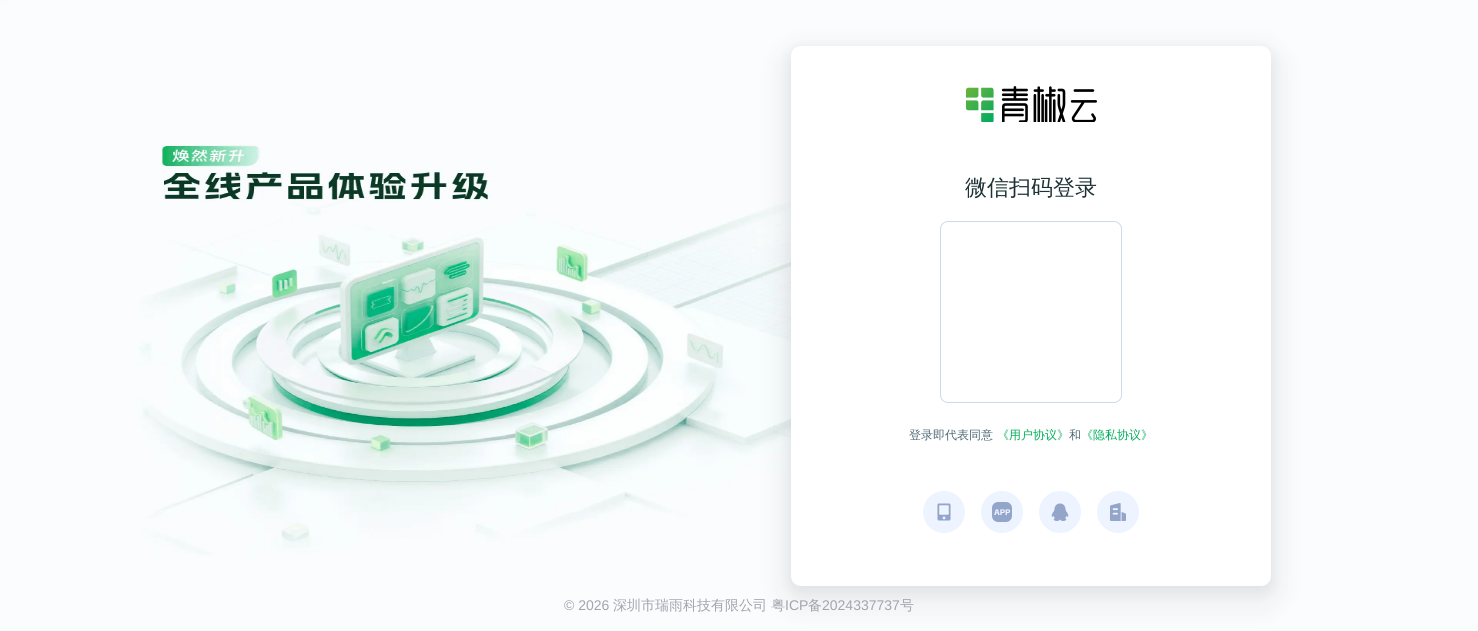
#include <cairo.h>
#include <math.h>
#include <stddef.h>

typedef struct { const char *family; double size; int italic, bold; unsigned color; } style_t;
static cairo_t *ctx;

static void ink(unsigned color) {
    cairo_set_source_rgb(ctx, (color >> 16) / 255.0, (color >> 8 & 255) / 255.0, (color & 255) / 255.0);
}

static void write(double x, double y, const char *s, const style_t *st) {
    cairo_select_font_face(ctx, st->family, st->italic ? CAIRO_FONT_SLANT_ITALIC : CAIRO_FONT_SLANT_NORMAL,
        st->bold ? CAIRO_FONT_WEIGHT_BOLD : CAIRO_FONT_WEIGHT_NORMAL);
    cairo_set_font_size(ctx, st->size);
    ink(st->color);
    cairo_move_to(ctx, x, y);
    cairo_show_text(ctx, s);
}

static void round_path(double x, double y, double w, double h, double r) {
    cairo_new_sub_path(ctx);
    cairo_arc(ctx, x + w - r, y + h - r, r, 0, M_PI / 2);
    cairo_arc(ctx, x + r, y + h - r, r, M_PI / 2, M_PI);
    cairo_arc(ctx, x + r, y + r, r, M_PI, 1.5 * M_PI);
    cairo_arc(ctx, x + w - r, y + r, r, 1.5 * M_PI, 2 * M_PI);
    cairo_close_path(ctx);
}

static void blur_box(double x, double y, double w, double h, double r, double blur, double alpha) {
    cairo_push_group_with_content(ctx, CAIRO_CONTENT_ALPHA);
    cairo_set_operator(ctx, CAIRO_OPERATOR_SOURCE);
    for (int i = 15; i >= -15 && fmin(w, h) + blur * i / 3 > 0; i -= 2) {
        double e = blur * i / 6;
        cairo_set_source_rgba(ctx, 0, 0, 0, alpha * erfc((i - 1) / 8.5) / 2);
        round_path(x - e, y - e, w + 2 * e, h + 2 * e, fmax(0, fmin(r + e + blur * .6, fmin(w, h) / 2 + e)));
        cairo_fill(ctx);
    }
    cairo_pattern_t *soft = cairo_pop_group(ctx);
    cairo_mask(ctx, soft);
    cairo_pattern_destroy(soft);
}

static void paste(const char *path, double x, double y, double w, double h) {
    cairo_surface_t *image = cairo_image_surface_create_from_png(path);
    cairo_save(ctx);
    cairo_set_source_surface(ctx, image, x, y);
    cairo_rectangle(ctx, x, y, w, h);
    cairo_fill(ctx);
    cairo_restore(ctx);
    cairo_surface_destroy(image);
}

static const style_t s1 = {"WenQuanYi Zen Hei Medium", 22, 0, 0, 0x1e3236};
static const style_t s2 = {"WenQuanYi Zen Hei Medium", 12, 0, 0, 0x506a76};
static const style_t s3 = {"WenQuanYi Zen Hei Medium", 12, 0, 0, 0x01ad5b};
static const style_t s4 = {"Liberation Sans", 14, 0, 0, 0xa1a5ad};
static const style_t s5 = {"WenQuanYi Zen Hei Medium", 14, 0, 0, 0xa1a5ad};

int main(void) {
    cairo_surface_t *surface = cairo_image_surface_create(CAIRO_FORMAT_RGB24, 1478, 631);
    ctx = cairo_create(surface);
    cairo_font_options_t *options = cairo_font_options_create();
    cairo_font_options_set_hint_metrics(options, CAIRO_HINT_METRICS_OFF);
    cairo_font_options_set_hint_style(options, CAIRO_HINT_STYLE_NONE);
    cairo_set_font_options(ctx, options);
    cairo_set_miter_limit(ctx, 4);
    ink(0xffffff);
    cairo_paint(ctx);
    paste("pic1.png", 0, 0, 1478, 631);
    ink(0x000000);
    blur_box(775, 42, 512, 572, 26, 12, 0.04);
    blur_box(791, 52, 480, 540, 10, 8, 0.08);
    ink(0xffffff);
    round_path(791, 46, 480, 540, 10);
    cairo_fill(ctx);
    paste("pic2.png", 966, 86, 131, 36);
    write(965, 195, "微信扫码登录", &s1);
    round_path(940.5, 221.5, 181, 181, 7.5);
    ink(0xd1d9e9);
    cairo_set_line_width(ctx, 1);
    cairo_stroke(ctx);
    write(909, 439, "登录即代表同意", &s2);
    write(997, 439, "《用户协议》", &s3);
    write(1069, 439, "和", &s2);
    write(1081, 439, "《隐私协议》", &s3);
    ink(0xeef4ff);
    cairo_new_path(ctx);
    cairo_arc(ctx, 944, 512, 21, 0, 2 * M_PI);
    cairo_fill(ctx);
    paste("pic3.png", 937, 503, 14, 18);
    cairo_arc(ctx, 1002, 512, 21, 0, 2 * M_PI);
    cairo_fill(ctx);
    paste("pic4.png", 992, 502, 20, 20);
    cairo_arc(ctx, 1060, 512, 21, 0, 2 * M_PI);
    cairo_fill(ctx);
    paste("pic5.png", 1051, 503, 18, 18);
    cairo_arc(ctx, 1118, 512, 21, 0, 2 * M_PI);
    cairo_fill(ctx);
    paste("pic6.png", 1110, 503, 16, 18);
    write(564, 610, "© 2026", &s4);
    write(613, 610, "深圳市瑞雨科技有限公司 粤", &s5);
    write(785, 610, "ICP", &s4);
    write(808, 610, "备", &s5);
    write(822, 610, "2024337737", &s4);
    write(900, 610, "号", &s5);
    cairo_surface_write_to_png(surface, "screenshot.png");
    cairo_font_options_destroy(options);
    cairo_destroy(ctx);
    cairo_surface_destroy(surface);
    return 0;
}
